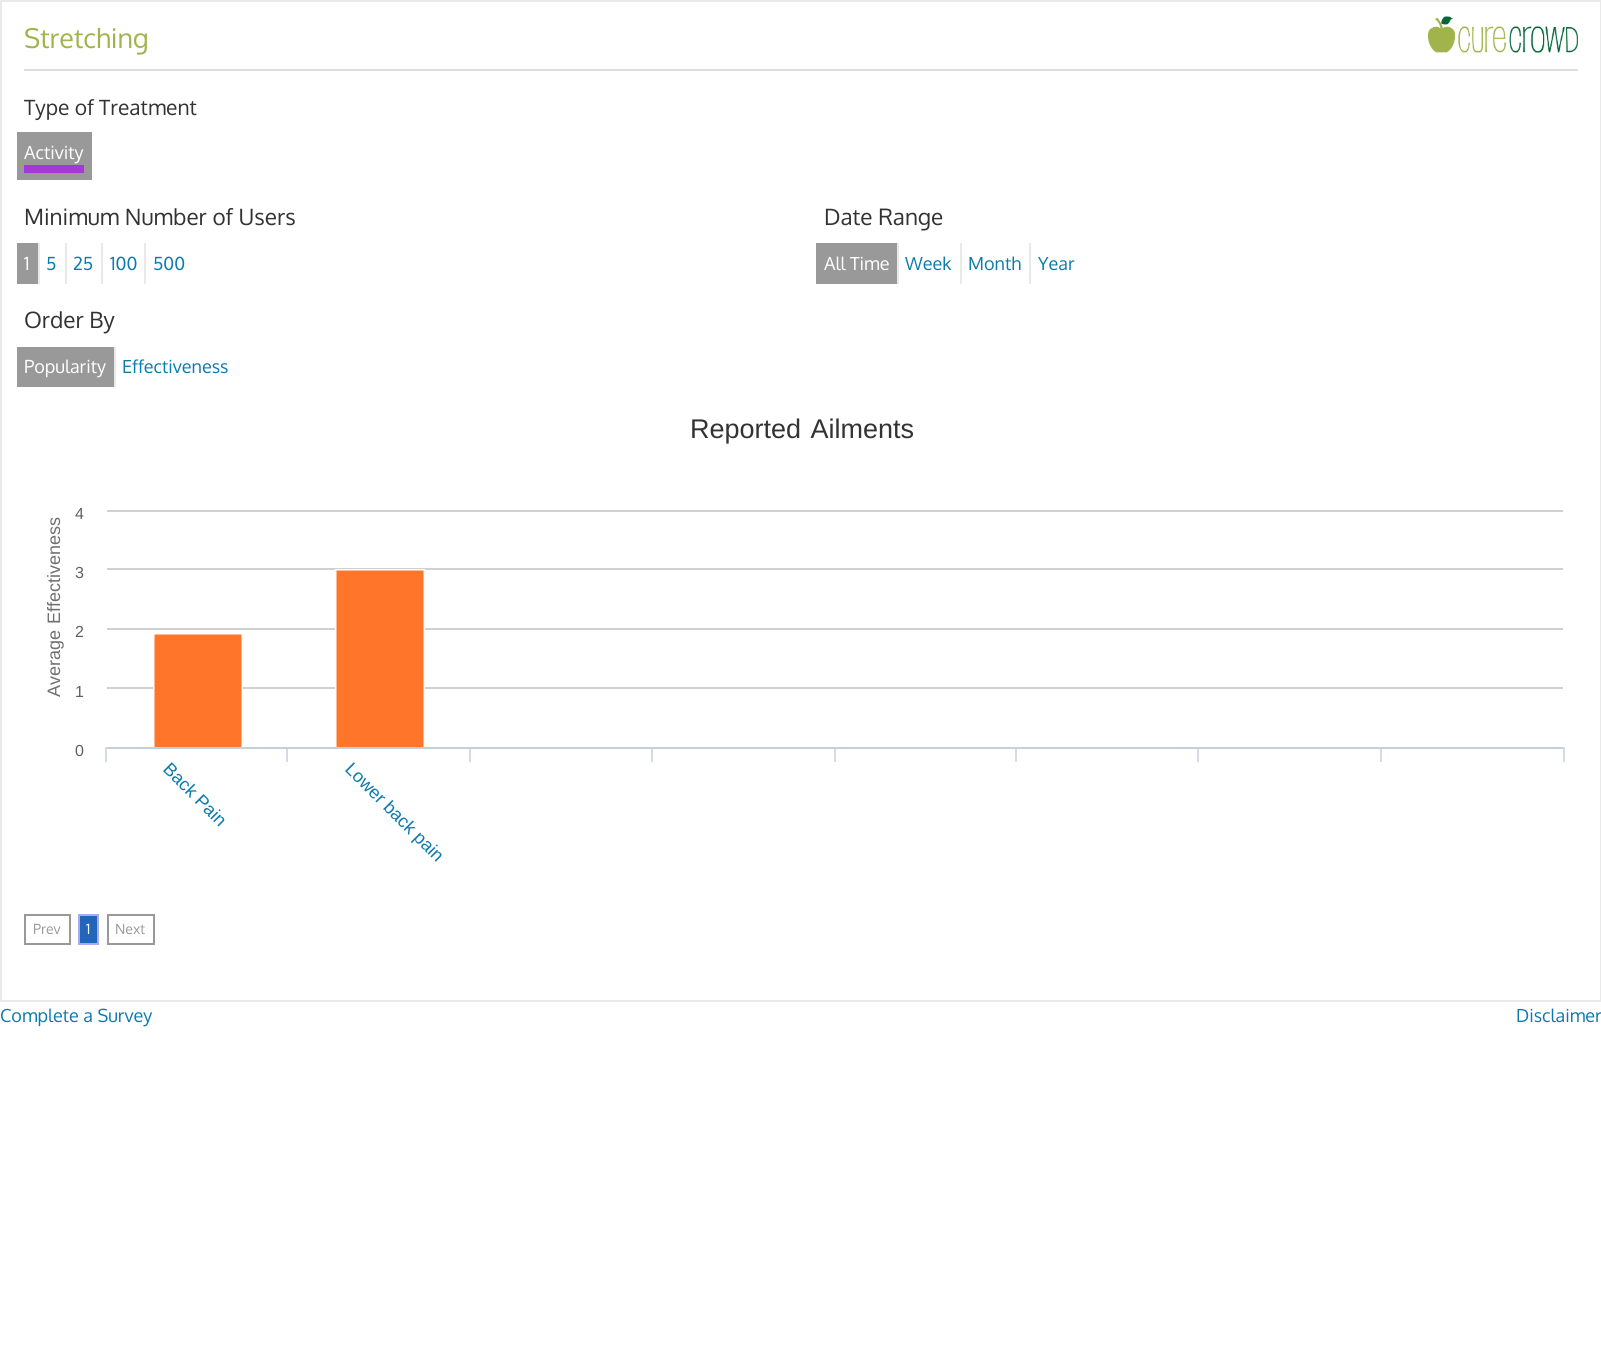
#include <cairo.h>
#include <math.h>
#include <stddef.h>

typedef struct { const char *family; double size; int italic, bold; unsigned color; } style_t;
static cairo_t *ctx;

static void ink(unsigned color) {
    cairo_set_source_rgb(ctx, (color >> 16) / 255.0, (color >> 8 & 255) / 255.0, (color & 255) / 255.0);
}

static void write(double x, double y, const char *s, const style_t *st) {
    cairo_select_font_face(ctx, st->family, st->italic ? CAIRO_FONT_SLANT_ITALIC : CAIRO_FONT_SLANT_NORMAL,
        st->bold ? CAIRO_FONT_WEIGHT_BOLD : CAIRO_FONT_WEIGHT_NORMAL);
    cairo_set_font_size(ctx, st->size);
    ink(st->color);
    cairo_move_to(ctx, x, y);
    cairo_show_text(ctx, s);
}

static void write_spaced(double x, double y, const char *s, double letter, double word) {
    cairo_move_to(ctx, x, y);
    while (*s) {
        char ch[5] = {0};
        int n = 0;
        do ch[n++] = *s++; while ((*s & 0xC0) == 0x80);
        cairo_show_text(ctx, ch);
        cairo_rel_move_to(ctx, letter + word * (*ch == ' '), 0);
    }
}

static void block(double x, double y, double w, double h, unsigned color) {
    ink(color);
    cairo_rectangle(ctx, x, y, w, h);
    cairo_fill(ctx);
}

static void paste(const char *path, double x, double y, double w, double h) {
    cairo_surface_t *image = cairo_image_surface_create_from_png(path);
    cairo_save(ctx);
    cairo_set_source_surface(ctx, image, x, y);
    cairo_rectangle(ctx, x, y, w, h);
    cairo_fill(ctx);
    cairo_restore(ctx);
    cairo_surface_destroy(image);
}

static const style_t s1 = {"Oxygen", 27, 0, 0, 0xa1b34b};
static const style_t s2 = {"Oxygen", 21, 0, 0, 0x333333};
static const style_t s3 = {"Oxygen", 18, 0, 0, 0xffffff};
static const style_t s4 = {"Oxygen", 22.5, 0, 0, 0x333333};
static const style_t s5 = {"Oxygen", 18, 0, 0, 0x0d7aac};
static const style_t s6 = {"Liberation Sans", 16, 0, 0, 0x606060};
static const style_t s7 = {"Liberation Sans", 18, 0, 0, 0x0d7aac};
static const style_t s8 = {"Oxygen", 14, 0, 0, 0x999999};
static const style_t s9 = {"Oxygen", 14, 0, 0, 0xffffff};

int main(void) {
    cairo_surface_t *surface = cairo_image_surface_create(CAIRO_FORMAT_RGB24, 1601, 1368);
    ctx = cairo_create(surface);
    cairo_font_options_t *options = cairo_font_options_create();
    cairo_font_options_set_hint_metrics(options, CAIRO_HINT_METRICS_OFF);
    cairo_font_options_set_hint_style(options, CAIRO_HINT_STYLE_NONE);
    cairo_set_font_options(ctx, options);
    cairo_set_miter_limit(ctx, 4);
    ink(0xffffff);
    cairo_paint(ctx);
    cairo_rectangle(ctx, 1, 1, 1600, 1000);
    ink(0xe9e9e9);
    cairo_stroke(ctx);
    block(24, 69, 1554, 2, 0xdddddd);
    write(24, 48, "Stretching", &s1);
    paste("pic1.png", 1428, 16, 150, 37);
    write(24, 115, "Type of Treatment", &s2);
    block(17, 132, 75, 48, 0x999999);
    block(24, 165, 60, 8, 0xa439d5);
    write(24, 159, "Activity", &s3);
    write(24, 225, "Minimum Number of Users", &s4);
    block(17, 243, 21, 41, 0x999999);
    block(38, 243, 2, 41, 0xe9e9e9);
    write(24, 270, "1", &s3);
    block(65, 243, 2, 41, 0xe9e9e9);
    write(46, 270, "5", &s5);
    block(101, 243, 2, 41, 0xe9e9e9);
    write(73, 270, "25", &s5);
    block(144, 243, 2, 41, 0xe9e9e9);
    write(110, 270, "100", &s5);
    write(153, 270, "500", &s5);
    write(824, 225, "Date Range", &s4);
    block(816, 243, 81, 41, 0x999999);
    block(897, 243, 2, 41, 0xe9e9e9);
    write(824, 270, "All Time", &s3);
    block(960, 243, 2, 41, 0xe9e9e9);
    write(905, 270, "Week", &s5);
    block(1029, 243, 2, 41, 0xe9e9e9);
    write(968, 270, "Month", &s5);
    write(1038, 270, "Year", &s5);
    write(24, 328, "Order By", &s4);
    block(17, 347, 97, 40, 0x999999);
    block(114, 347, 2, 40, 0xe9e9e9);
    write(24, 373, "Popularity", &s3);
    write(122, 373, "Effectiveness", &s5);
    cairo_select_font_face(ctx, "Liberation Sans", CAIRO_FONT_SLANT_NORMAL, CAIRO_FONT_WEIGHT_NORMAL);
    cairo_set_font_size(ctx, 27);
    ink(0x333333);
    write_spaced(690, 438, "Reported Ailments", 0, 2);
    cairo_set_font_size(ctx, 18);
    ink(0x707070);
    cairo_save(ctx);
    cairo_translate(ctx, 60, 697);
    cairo_rotate(ctx, -90 * M_PI / 180);
    write_spaced(0, 0, "Average Effectiveness", 0, 1);
    cairo_restore(ctx);
    write(75, 519, "4", &s6);
    paste("pic2.png", 105, 510, 1460, 252);
    write(75, 578, "3", &s6);
    write(75, 637, "2", &s6);
    write(75, 697, "1", &s6);
    write(75, 756, "0", &s6);
    cairo_save(ctx);
    cairo_translate(ctx, 162, 770);
    cairo_rotate(ctx, 45 * M_PI / 180);
    write(0, 0, "Back Pain", &s7);
    cairo_restore(ctx);
    cairo_save(ctx);
    cairo_translate(ctx, 344, 770);
    cairo_rotate(ctx, 45 * M_PI / 180);
    write(0, 0, "Lower back pain", &s7);
    cairo_restore(ctx);
    cairo_rectangle(ctx, 25, 915, 45, 29);
    ink(0x999999);
    cairo_stroke(ctx);
    write(33, 934, "Prev", &s8);
    ink(0x2266bb);
    cairo_rectangle(ctx, 79, 915, 19, 29);
    cairo_fill_preserve(ctx);
    ink(0xaaaaee);
    cairo_stroke(ctx);
    write(86, 934, "1", &s9);
    cairo_rectangle(ctx, 108, 915, 46, 29);
    ink(0x999999);
    cairo_stroke(ctx);
    write(115, 934, "Next", &s8);
    write(0, 1022, "Complete a Survey", &s5);
    write(1516, 1022, "Disclaimer", &s5);
    cairo_surface_write_to_png(surface, "screenshot.png");
    cairo_font_options_destroy(options);
    cairo_destroy(ctx);
    cairo_surface_destroy(surface);
    return 0;
}
